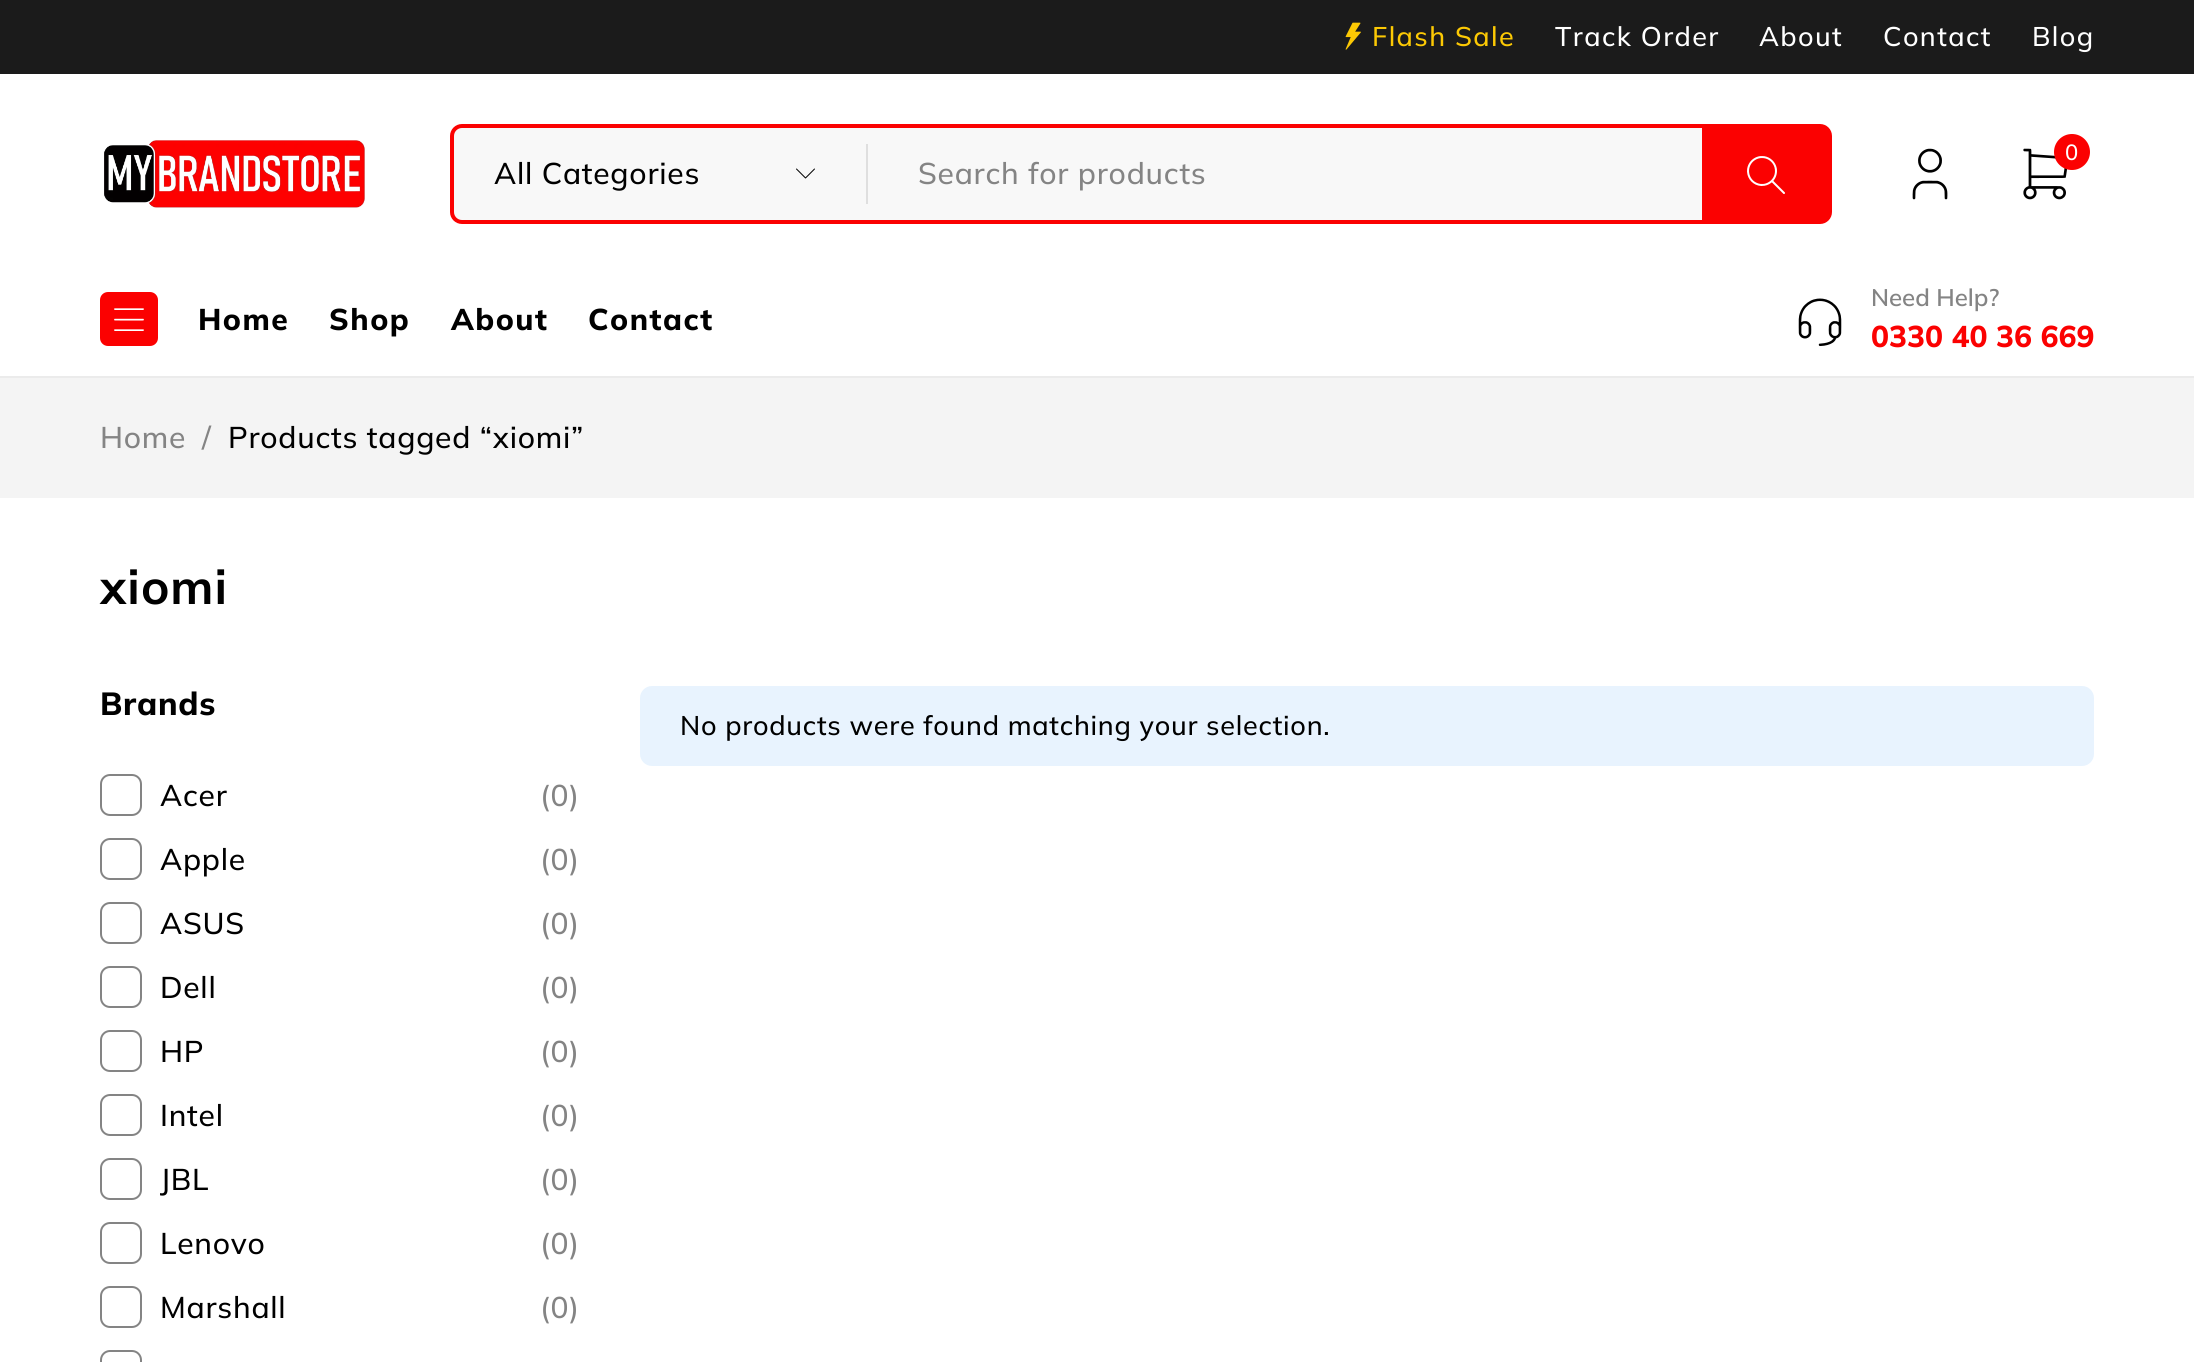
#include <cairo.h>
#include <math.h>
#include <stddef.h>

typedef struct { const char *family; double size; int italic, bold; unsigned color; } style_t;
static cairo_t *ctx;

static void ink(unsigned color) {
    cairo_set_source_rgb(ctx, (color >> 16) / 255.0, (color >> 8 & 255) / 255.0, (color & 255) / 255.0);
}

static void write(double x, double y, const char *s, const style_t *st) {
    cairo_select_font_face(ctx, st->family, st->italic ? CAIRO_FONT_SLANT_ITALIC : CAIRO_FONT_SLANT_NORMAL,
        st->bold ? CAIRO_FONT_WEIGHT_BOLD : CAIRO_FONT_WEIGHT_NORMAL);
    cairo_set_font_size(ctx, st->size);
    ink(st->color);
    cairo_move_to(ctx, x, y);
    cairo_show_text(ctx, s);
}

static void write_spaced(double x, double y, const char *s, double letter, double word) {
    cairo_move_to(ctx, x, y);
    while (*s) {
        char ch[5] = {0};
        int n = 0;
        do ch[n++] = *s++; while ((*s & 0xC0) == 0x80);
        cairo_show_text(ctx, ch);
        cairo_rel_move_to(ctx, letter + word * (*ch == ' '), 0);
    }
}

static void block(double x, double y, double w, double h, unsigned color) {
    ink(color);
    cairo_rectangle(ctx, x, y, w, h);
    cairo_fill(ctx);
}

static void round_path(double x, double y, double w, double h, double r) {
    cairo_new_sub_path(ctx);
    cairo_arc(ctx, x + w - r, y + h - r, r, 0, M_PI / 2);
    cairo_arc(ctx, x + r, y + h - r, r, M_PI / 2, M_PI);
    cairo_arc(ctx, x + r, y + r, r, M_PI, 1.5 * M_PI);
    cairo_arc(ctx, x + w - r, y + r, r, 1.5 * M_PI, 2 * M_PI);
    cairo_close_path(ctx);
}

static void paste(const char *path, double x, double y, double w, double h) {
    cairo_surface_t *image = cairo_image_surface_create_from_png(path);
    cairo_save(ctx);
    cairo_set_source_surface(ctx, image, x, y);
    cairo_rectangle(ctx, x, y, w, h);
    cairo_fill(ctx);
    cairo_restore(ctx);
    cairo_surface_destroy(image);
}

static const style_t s1 = {"Mulish Medium", 22, 0, 0, 0xffffff};
static const style_t s2 = {"Mulish SemiBold", 24, 0, 0, 0x848484};
static const style_t s3 = {"Mulish ExtraBold", 30, 0, 0, 0xfb0101};

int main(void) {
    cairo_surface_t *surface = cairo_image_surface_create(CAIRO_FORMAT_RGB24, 2194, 1362);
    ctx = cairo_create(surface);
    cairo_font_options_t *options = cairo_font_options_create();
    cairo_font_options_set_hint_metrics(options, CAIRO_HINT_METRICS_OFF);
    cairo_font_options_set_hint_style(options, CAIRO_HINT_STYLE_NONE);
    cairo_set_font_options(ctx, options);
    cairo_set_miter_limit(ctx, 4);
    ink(0xffffff);
    cairo_paint(ctx);
    block(0, 0, 2194, 74, 0x1b1b1b);
    paste("pic1.png", 1345, 22, 16, 28);
    cairo_select_font_face(ctx, "Mulish Medium", CAIRO_FONT_SLANT_NORMAL, CAIRO_FONT_WEIGHT_NORMAL);
    cairo_set_font_size(ctx, 27);
    ink(0xfcc904);
    write_spaced(1372, 46, "Flash Sale", 1.4, 0);
    ink(0xffffff);
    write_spaced(1555, 46, "Track Order", 1.4, 0);
    write_spaced(1759, 46, "About", 1.4, 0);
    write_spaced(1883, 46, "Contact", 1.4, 0);
    write_spaced(2032, 46, "Blog", 1.4, 0);
    paste("pic2.png", 104, 140, 261, 68);
    paste("pic3.png", 1912, 148, 36, 52);
    paste("pic4.png", 2023, 148, 45, 52);
    ink(0xfb0101);
    cairo_arc(ctx, 2072, 152, 18, 0, 2 * M_PI);
    cairo_fill(ctx);
    write(2065, 160, "0", &s1);
    ink(0xf8f8f8);
    round_path(452, 126, 1378, 96, 10);
    cairo_fill_preserve(ctx);
    ink(0xfb0101);
    cairo_set_line_width(ctx, 4);
    cairo_stroke(ctx);
    paste("pic5.png", 796, 168, 19, 11);
    cairo_set_font_size(ctx, 30);
    ink(0x000000);
    write_spaced(494, 184, "All Categories", 0.75, 0);
    block(866, 144, 2, 60, 0xdfdfdf);
    ink(0x848484);
    write_spaced(918, 184, "Search for products", 0.75, 0);
    block(1702, 128, 126, 92, 0xfb0101);
    paste("pic6.png", 1747, 156, 38, 38);
    block(0, 376, 2194, 2, 0xebebeb);
    ink(0xfb0101);
    round_path(100, 292, 58, 54, 8);
    cairo_fill(ctx);
    paste("pic7.png", 114, 308, 30, 23);
    cairo_select_font_face(ctx, "Mulish ExtraBold", CAIRO_FONT_SLANT_NORMAL, CAIRO_FONT_WEIGHT_NORMAL);
    ink(0x000000);
    write_spaced(198, 330, "Home", 1.5, 0);
    write_spaced(329, 330, "Shop", 1.5, 0);
    write_spaced(451, 330, "About", 1.5, 0);
    write_spaced(588, 330, "Contact", 1.5, 0);
    paste("pic8.png", 1798, 298, 44, 48);
    write(1871, 306, "Need Help?", &s2);
    write(1871, 347, "0330 40 36 669", &s3);
    block(0, 378, 2194, 120, 0xf4f4f4);
    cairo_select_font_face(ctx, "Mulish Medium", CAIRO_FONT_SLANT_NORMAL, CAIRO_FONT_WEIGHT_NORMAL);
    ink(0x848484);
    write_spaced(100, 448, "Home", 0.75, 0);
    write_spaced(202, 448, "/", 0.75, 0);
    ink(0x000000);
    write_spaced(228, 448, "Products tagged “xiomi”", 0.75, 0);
    cairo_select_font_face(ctx, "Mulish", CAIRO_FONT_SLANT_NORMAL, CAIRO_FONT_WEIGHT_BOLD);
    cairo_set_font_size(ctx, 48);
    write_spaced(100, 604, "xiomi", 1, 0);
    cairo_select_font_face(ctx, "Mulish ExtraBold", CAIRO_FONT_SLANT_NORMAL, CAIRO_FONT_WEIGHT_NORMAL);
    cairo_set_font_size(ctx, 32);
    write_spaced(100, 715, "Brands", 0.75, 0);
    round_path(101, 775, 40, 40, 9);
    ink(0x848484);
    cairo_set_line_width(ctx, 2);
    cairo_stroke(ctx);
    cairo_select_font_face(ctx, "Mulish Medium", CAIRO_FONT_SLANT_NORMAL, CAIRO_FONT_WEIGHT_NORMAL);
    cairo_set_font_size(ctx, 30);
    ink(0x000000);
    write_spaced(160, 806, "Acer", 0.75, 0);
    ink(0x848484);
    write_spaced(540, 806, "(0)", 0.75, 0);
    round_path(101, 839, 40, 40, 9);
    cairo_stroke(ctx);
    ink(0x000000);
    write_spaced(160, 870, "Apple", 0.75, 0);
    ink(0x848484);
    write_spaced(540, 870, "(0)", 0.75, 0);
    round_path(101, 903, 40, 40, 9);
    cairo_stroke(ctx);
    ink(0x000000);
    write_spaced(160, 934, "ASUS", 0.75, 0);
    ink(0x848484);
    write_spaced(540, 934, "(0)", 0.75, 0);
    round_path(101, 967, 40, 40, 9);
    cairo_stroke(ctx);
    ink(0x000000);
    write_spaced(160, 998, "Dell", 0.75, 0);
    ink(0x848484);
    write_spaced(540, 998, "(0)", 0.75, 0);
    round_path(101, 1031, 40, 40, 9);
    cairo_stroke(ctx);
    ink(0x000000);
    write_spaced(160, 1062, "HP", 0.75, 0);
    ink(0x848484);
    write_spaced(540, 1062, "(0)", 0.75, 0);
    round_path(101, 1095, 40, 40, 9);
    cairo_stroke(ctx);
    ink(0x000000);
    write_spaced(160, 1126, "Intel", 0.75, 0);
    ink(0x848484);
    write_spaced(540, 1126, "(0)", 0.75, 0);
    round_path(101, 1159, 40, 40, 9);
    cairo_stroke(ctx);
    ink(0x000000);
    write_spaced(160, 1190, "JBL", 0.75, 0);
    ink(0x848484);
    write_spaced(540, 1190, "(0)", 0.75, 0);
    round_path(101, 1223, 40, 40, 9);
    cairo_stroke(ctx);
    ink(0x000000);
    write_spaced(160, 1254, "Lenovo", 0.75, 0);
    ink(0x848484);
    write_spaced(540, 1254, "(0)", 0.75, 0);
    round_path(101, 1287, 40, 40, 9);
    cairo_stroke(ctx);
    ink(0x000000);
    write_spaced(160, 1318, "Marshall", 0.75, 0);
    ink(0x848484);
    write_spaced(540, 1318, "(0)", 0.75, 0);
    round_path(101, 1351, 40, 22, 9);
    cairo_stroke(ctx);
    ink(0xe8f3fe);
    round_path(640, 686, 1454, 80, 12);
    cairo_fill(ctx);
    cairo_set_font_size(ctx, 27);
    ink(0x000000);
    write_spaced(680, 735, "No products were found matching your selection.", 0.75, 0);
    cairo_surface_write_to_png(surface, "screenshot.png");
    cairo_font_options_destroy(options);
    cairo_destroy(ctx);
    cairo_surface_destroy(surface);
    return 0;
}
